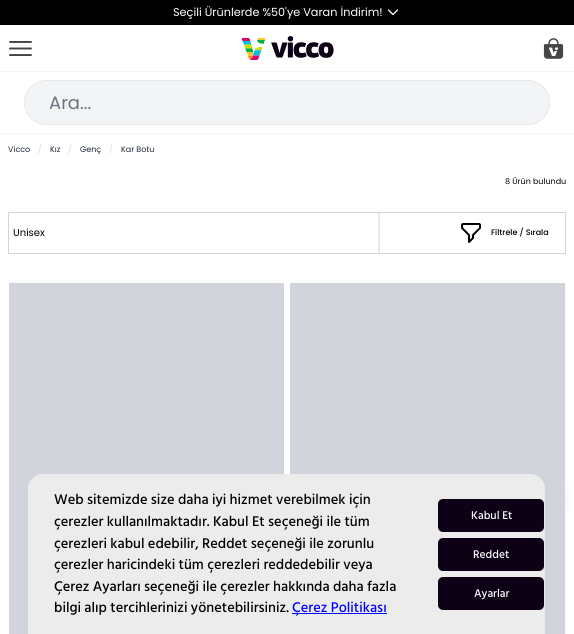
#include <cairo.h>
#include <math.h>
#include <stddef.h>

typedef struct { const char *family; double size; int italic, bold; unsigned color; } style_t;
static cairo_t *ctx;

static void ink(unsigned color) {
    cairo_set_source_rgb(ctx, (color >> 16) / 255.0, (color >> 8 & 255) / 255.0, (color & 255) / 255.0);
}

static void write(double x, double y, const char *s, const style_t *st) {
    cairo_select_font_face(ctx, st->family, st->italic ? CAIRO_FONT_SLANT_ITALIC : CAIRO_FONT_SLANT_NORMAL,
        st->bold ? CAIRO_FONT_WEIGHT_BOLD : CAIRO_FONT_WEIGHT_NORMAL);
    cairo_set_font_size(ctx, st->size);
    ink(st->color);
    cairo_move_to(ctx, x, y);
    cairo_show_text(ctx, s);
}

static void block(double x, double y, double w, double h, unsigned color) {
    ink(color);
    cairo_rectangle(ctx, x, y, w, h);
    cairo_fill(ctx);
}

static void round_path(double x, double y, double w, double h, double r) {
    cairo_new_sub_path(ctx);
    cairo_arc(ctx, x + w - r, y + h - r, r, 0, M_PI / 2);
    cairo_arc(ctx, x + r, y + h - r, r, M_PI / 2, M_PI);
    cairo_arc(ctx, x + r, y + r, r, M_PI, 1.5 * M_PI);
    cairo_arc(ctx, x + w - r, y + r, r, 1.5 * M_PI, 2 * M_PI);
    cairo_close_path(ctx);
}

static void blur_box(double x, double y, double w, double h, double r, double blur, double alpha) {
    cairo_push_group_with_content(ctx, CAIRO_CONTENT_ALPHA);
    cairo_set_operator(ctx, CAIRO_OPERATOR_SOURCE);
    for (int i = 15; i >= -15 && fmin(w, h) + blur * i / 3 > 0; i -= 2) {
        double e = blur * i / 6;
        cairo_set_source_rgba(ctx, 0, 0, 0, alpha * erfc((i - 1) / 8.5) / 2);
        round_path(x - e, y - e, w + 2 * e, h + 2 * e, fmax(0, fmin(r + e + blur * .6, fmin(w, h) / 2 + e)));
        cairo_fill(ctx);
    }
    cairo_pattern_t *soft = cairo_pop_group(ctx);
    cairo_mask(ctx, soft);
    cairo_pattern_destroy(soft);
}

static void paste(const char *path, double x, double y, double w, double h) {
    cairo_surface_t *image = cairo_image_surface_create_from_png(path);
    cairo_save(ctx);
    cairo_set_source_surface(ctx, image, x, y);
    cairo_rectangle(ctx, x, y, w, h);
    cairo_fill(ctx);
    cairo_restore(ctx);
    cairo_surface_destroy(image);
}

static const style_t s1 = {"Poppins", 11.25, 0, 0, 0xffffff};
static const style_t s2 = {"Poppins", 18, 0, 0, 0x6b7280};
static const style_t s3 = {"Poppins", 8, 0, 0, 0x1f2937};
static const style_t s4 = {"Poppins", 8, 0, 0, 0xd1d5db};
static const style_t s5 = {"Poppins", 8, 0, 0, 0x000000};
static const style_t s6 = {"Poppins", 10, 0, 0, 0x000000};
static const style_t s7 = {"Poppins Medium", 8, 0, 0, 0x000000};
static const style_t s8 = {"Hind Siliguri Medium", 14.4, 0, 0, 0x000000};
static const style_t s9 = {"Hind Siliguri Medium", 14.4, 0, 0, 0x0000ff};
static const style_t s10 = {"Hind Siliguri Medium", 11.5, 0, 0, 0xffffff};

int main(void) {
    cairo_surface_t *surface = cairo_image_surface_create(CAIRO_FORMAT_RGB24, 574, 634);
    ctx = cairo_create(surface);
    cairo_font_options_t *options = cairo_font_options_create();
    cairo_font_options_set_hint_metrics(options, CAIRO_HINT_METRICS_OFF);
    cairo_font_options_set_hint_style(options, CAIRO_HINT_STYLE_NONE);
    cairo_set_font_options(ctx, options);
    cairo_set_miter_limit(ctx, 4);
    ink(0xffffff);
    cairo_paint(ctx);
    block(0, 0, 574, 25, 0x000000);
    write(173, 16, "Seçili Ürünlerde %50'ye Varan İndirim!", &s1);
    cairo_new_path(ctx);
    cairo_move_to(ctx, 397.5, 10);
    cairo_line_to(ctx, 393, 14.5);
    cairo_line_to(ctx, 388.5, 10);
    cairo_set_line_width(ctx, 1.3);
    cairo_set_line_cap(ctx, CAIRO_LINE_CAP_ROUND);
    cairo_set_line_join(ctx, CAIRO_LINE_JOIN_ROUND);
    cairo_stroke(ctx);
    block(0, 71, 574, 1, 0xf5f5f5);
    paste("pic1.png", 9, 41, 23, 15);
    paste("pic2.png", 241, 36, 93, 24);
    paste("pic3.png", 543, 38, 21, 21);
    ink(0x000000);
    blur_box(0, 73, 574, 61, 0, 1, 0.05);
    block(0, 72, 574, 61, 0xffffff);
    ink(0xf3f4f6);
    round_path(24.5, 80.5, 525, 44, 22);
    cairo_fill_preserve(ctx);
    ink(0xe5e7eb);
    cairo_set_line_width(ctx, 1);
    cairo_set_line_cap(ctx, CAIRO_LINE_CAP_BUTT);
    cairo_set_line_join(ctx, CAIRO_LINE_JOIN_MITER);
    cairo_stroke(ctx);
    write(49, 109, "Ara...", &s2);
    write(8, 152, "Vicco", &s3);
    write(38, 152, "/", &s4);
    write(50, 152, "Kız", &s3);
    write(68, 152, "/", &s4);
    write(80, 152, "Genç", &s3);
    write(109, 152, "/", &s4);
    write(121, 152, "Kar Botu", &s3);
    write(505, 184, "8 Ürün bulundu", &s5);
    cairo_rectangle(ctx, 8.5, 212.5, 557, 41);
    ink(0xd1d5db);
    cairo_stroke(ctx);
    write(13, 236, "Unisex", &s6);
    block(378, 213, 2, 40, 0xe5e7eb);
    paste("pic4.png", 461, 223, 20, 20);
    write(491, 235, "Filtrele / Sırala", &s7);
    block(9, 283, 275, 351, 0xd1d5db);
    ink(0x000000);
    blur_box(536, 486, 26, 26, 13, 7.5, 0.1);
    block(290, 283, 275, 351, 0xd1d5db);
    ink(0xedeced);
    cairo_new_path(ctx);
    cairo_move_to(ctx, 43, 474);
    cairo_line_to(ctx, 530, 474);
    cairo_curve_to(ctx, 538.5, 474, 545, 480.5, 545, 489);
    cairo_line_to(ctx, 545, 634);
    cairo_line_to(ctx, 28, 634);
    cairo_line_to(ctx, 28, 489);
    cairo_curve_to(ctx, 28, 480.5, 34.5, 474, 43, 474);
    cairo_close_path(ctx);
    cairo_fill(ctx);
    write(54, 504, "Web sitemizde size daha iyi hizmet verebilmek için", &s8);
    write(54, 526, "çerezler kullanılmaktadır. Kabul Et seçeneği ile tüm", &s8);
    write(54, 548, "çerezleri kabul edebilir, Reddet seçeneği ile zorunlu", &s8);
    write(54, 569, "çerezler haricindeki tüm çerezleri reddedebilir veya", &s8);
    write(54, 591, "Çerez Ayarları seçeneği ile çerezler hakkında daha fazla", &s8);
    write(54, 612, "bilgi alıp tercihlerinizi yönetebilirsiniz.", &s8);
    block(292, 613, 95, 1, 0x0000ff);
    write(292, 612, "Çerez Politikası", &s9);
    ink(0x0d0116);
    round_path(438, 499, 106, 33, 5);
    cairo_fill(ctx);
    write(471, 519, "Kabul Et", &s10);
    ink(0x0d0116);
    round_path(438, 538, 106, 33, 5);
    cairo_fill(ctx);
    write(473, 558, "Reddet", &s10);
    ink(0x0d0116);
    round_path(438, 577, 106, 33, 5);
    cairo_fill(ctx);
    write(474, 597, "Ayarlar", &s10);
    cairo_surface_write_to_png(surface, "screenshot.png");
    cairo_font_options_destroy(options);
    cairo_destroy(ctx);
    cairo_surface_destroy(surface);
    return 0;
}
